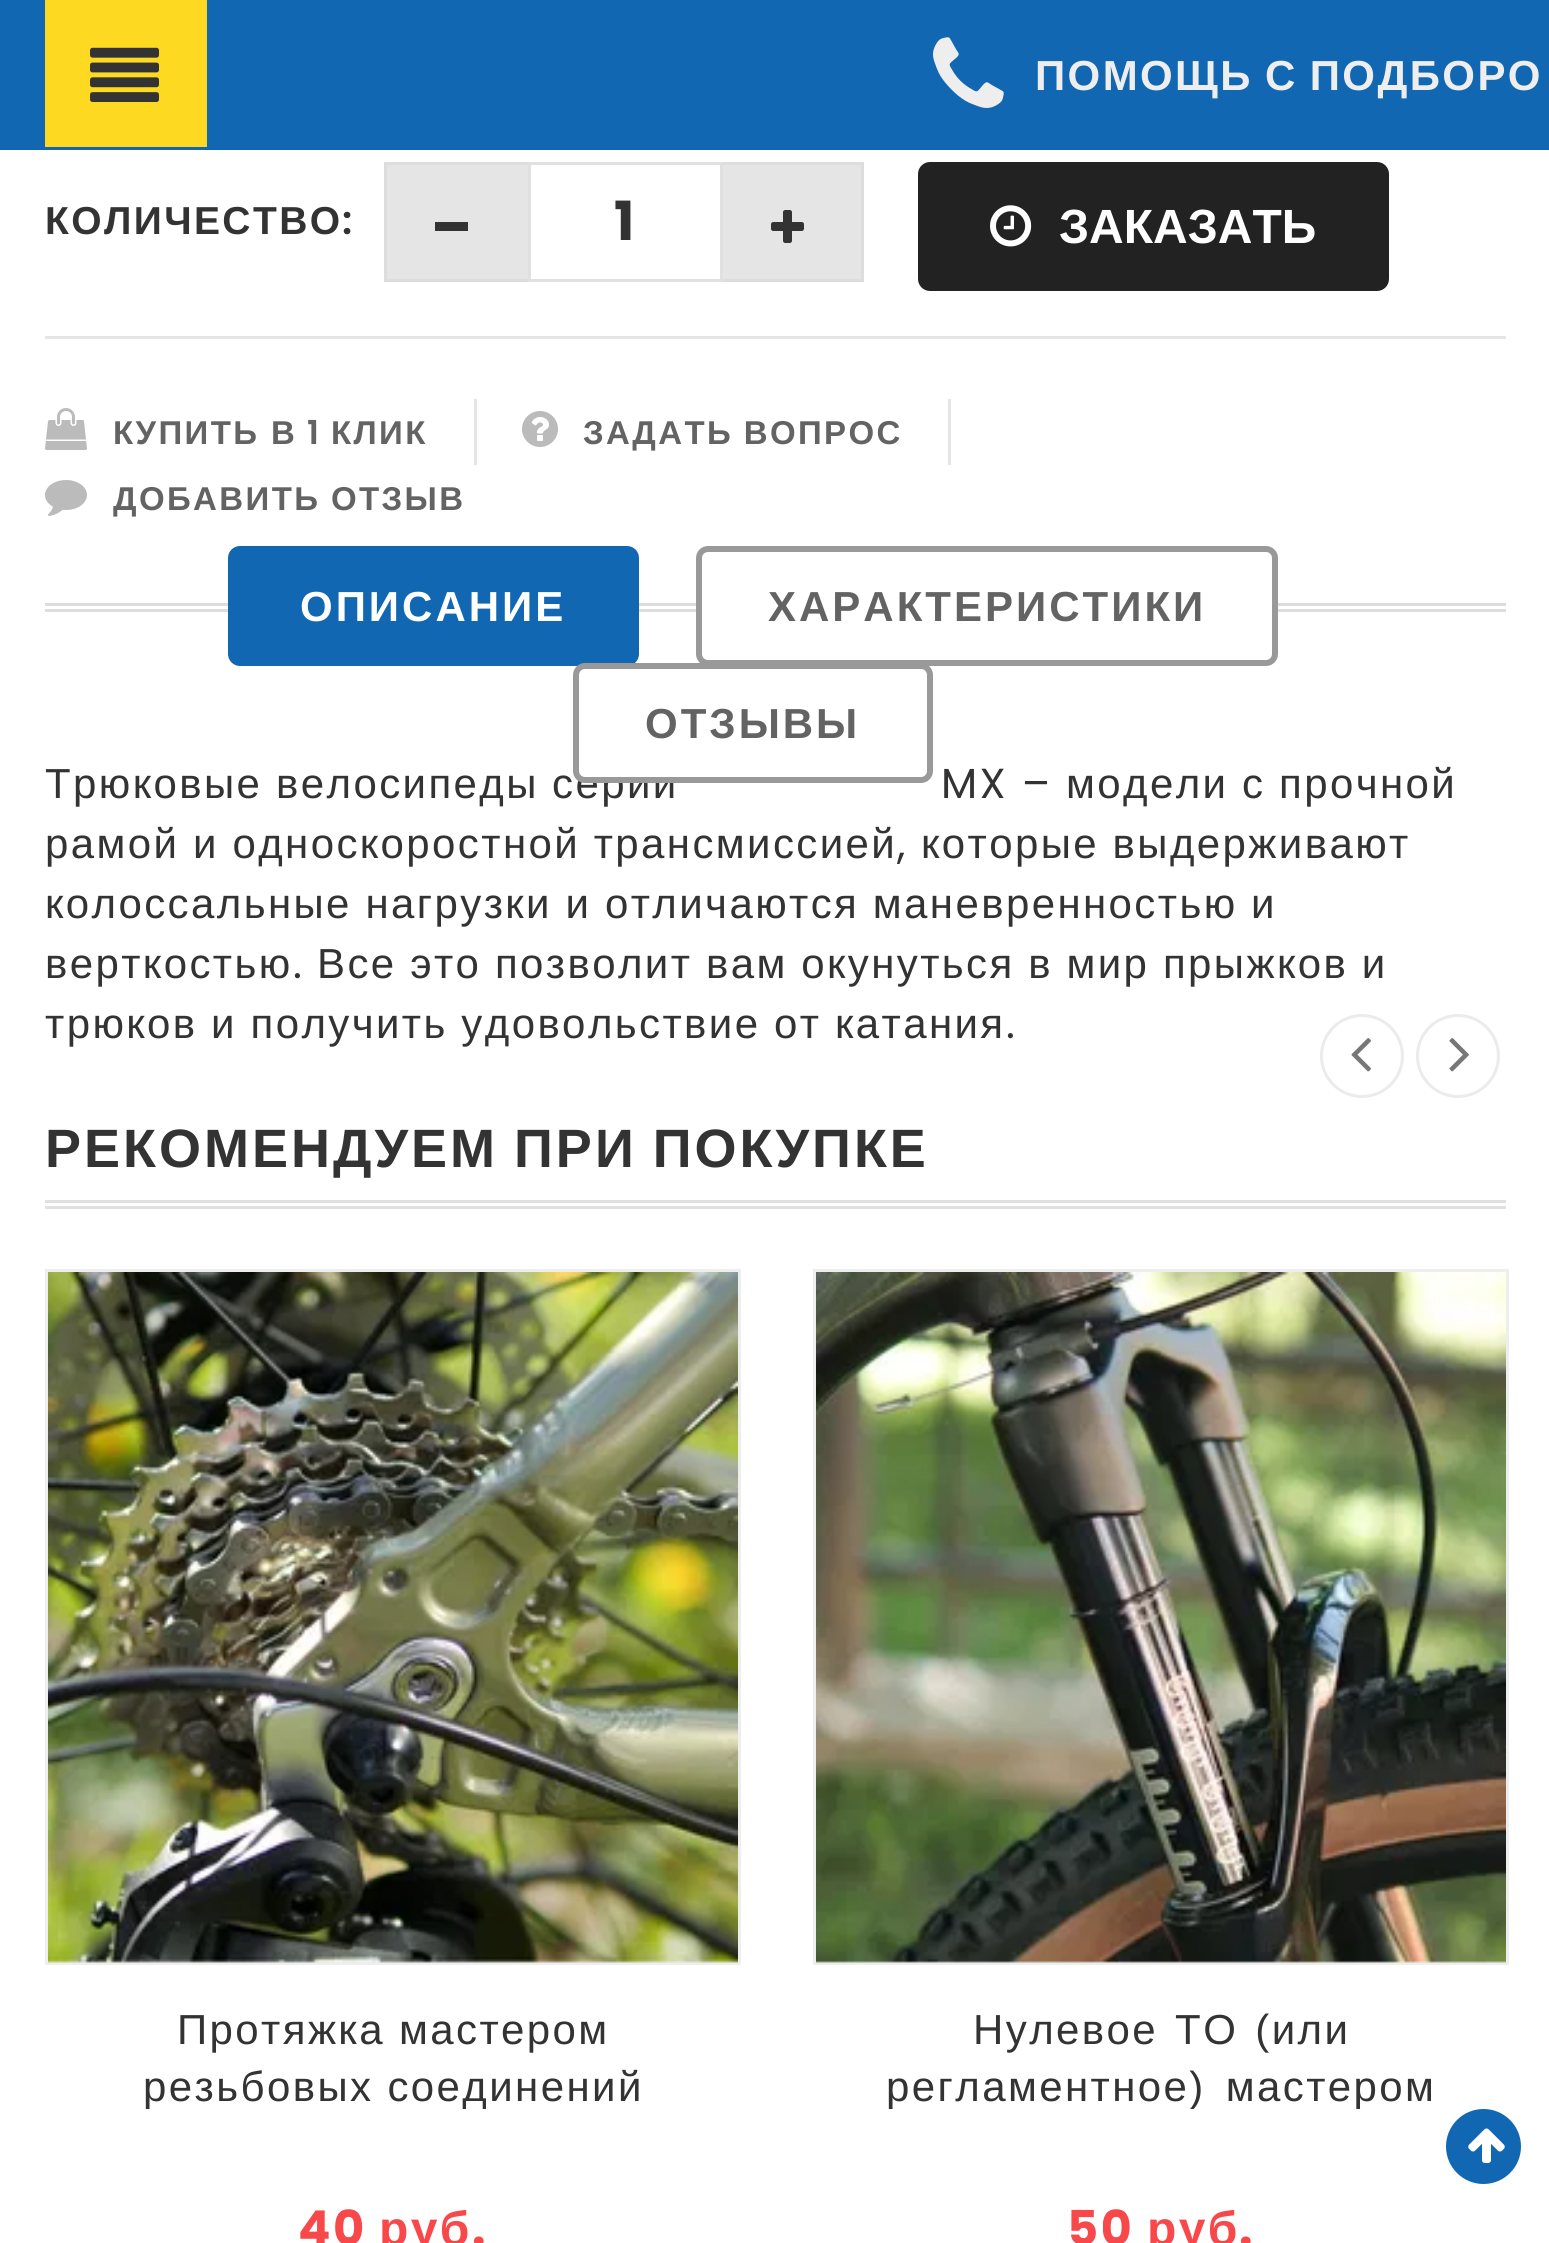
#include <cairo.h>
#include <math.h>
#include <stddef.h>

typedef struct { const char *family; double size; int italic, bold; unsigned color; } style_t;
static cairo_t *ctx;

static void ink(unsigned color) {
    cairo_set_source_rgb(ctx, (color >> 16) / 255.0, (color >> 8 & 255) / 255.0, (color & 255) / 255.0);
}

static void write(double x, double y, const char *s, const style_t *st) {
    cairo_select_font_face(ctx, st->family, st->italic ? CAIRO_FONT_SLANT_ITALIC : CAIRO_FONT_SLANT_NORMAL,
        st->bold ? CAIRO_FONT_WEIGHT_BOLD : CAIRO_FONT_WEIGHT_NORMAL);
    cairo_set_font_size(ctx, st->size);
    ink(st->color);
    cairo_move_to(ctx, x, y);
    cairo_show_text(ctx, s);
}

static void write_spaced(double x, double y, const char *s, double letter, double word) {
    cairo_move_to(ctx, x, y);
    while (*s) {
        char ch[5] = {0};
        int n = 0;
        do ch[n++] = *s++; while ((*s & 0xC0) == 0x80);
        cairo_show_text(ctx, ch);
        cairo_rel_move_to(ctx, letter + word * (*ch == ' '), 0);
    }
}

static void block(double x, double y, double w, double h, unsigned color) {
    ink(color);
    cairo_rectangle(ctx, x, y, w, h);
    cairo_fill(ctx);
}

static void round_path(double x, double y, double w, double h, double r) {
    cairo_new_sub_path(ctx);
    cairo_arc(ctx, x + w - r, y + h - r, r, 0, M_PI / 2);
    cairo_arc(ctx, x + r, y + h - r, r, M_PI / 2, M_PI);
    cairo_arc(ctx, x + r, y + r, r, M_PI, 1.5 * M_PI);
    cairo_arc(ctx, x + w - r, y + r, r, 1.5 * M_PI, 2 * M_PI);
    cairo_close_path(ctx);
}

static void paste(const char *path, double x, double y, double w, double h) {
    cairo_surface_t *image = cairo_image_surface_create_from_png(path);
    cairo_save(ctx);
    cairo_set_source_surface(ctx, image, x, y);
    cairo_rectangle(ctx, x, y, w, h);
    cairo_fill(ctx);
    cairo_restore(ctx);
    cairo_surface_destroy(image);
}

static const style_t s1 = {"Poppins", 54, 0, 1, 0x333333};
static const style_t s2 = {"Liberation Sans", 48, 0, 1, 0xffffff};

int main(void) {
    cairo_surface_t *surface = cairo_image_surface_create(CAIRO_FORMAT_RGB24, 1549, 2243);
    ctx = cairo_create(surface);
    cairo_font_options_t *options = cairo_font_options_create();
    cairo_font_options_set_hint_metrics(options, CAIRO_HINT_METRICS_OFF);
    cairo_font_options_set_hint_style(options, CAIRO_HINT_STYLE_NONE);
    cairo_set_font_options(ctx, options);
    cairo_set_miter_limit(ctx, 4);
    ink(0xffffff);
    cairo_paint(ctx);
    block(0, 0, 1549, 150, 0x1267b3);
    block(45, 0, 162, 147, 0xfdd922);
    paste("pic1.png", 90, 47, 69, 55);
    paste("pic2.png", 933, 37, 71, 71);
    cairo_select_font_face(ctx, "Liberation Sans", CAIRO_FONT_SLANT_NORMAL, CAIRO_FONT_WEIGHT_BOLD);
    cairo_set_font_size(ctx, 42);
    ink(0xeeeeee);
    write_spaced(1035, 90, "ПОМОЩЬ С ПОДБОРО", 2.4, -2);
    block(45, 336, 1461, 3, 0xe5e5e5);
    cairo_set_font_size(ctx, 39);
    ink(0x333333);
    write_spaced(45, 234, "КОЛИЧЕСТВО", 2.4, 0);
    cairo_select_font_face(ctx, "Poppins SemiBold", CAIRO_FONT_SLANT_NORMAL, CAIRO_FONT_WEIGHT_NORMAL);
    write_spaced(342, 234, ":", 2.4, 0);
    block(387, 165, 141, 114, 0xe5e5e5);
    block(384, 162, 144, 3, 0xdddddd);
    block(384, 279, 144, 3, 0xdddddd);
    block(384, 162, 3, 120, 0xdddddd);
    block(435, 222, 33, 9, 0x333333);
    cairo_rectangle(ctx, 529.5, 163.5, 192, 117);
    ink(0xe0e0e0);
    cairo_set_line_width(ctx, 3);
    cairo_stroke(ctx);
    write(614, 240, "1", &s1);
    block(723, 165, 138, 114, 0xe5e5e5);
    block(723, 162, 141, 3, 0xdddddd);
    block(861, 162, 3, 120, 0xdddddd);
    block(723, 279, 141, 3, 0xdddddd);
    paste("pic3.png", 771, 210, 33, 33);
    ink(0x222222);
    round_path(921, 165, 465, 123, 9);
    cairo_fill_preserve(ctx);
    cairo_set_line_width(ctx, 6);
    cairo_stroke(ctx);
    paste("pic4.png", 990, 205, 42, 42);
    write(1059, 243, "ЗАКАЗАТЬ", &s2);
    block(474, 399, 3, 66, 0xe5e5e5);
    paste("pic5.png", 45, 408, 42, 42);
    cairo_set_font_size(ctx, 33);
    ink(0x636363);
    write_spaced(113, 444, "КУПИТЬ В", 2.4, 0);
    cairo_select_font_face(ctx, "Poppins SemiBold", CAIRO_FONT_SLANT_NORMAL, CAIRO_FONT_WEIGHT_NORMAL);
    write_spaced(307, 444, "1", 2.4, 0);
    cairo_select_font_face(ctx, "Liberation Sans", CAIRO_FONT_SLANT_NORMAL, CAIRO_FONT_WEIGHT_BOLD);
    write_spaced(331, 444, "КЛИК", 2.4, 0);
    block(948, 399, 3, 66, 0xe5e5e5);
    paste("pic6.png", 522, 411, 36, 36);
    ink(0x636363);
    write_spaced(583, 444, "ЗАДАТЬ ВОПРОС", 2.4, -1);
    paste("pic7.png", 45, 480, 42, 36);
    write_spaced(113, 510, "ДОБАВИТЬ ОТЗЫВ", 2.4, -1);
    block(45, 603, 1461, 3, 0xdddddd);
    block(45, 609, 1461, 3, 0xdddddd);
    ink(0x1267b3);
    round_path(231, 549, 405, 114, 9);
    cairo_fill_preserve(ctx);
    cairo_stroke(ctx);
    cairo_set_font_size(ctx, 42);
    ink(0xffffff);
    write_spaced(300, 621, "ОПИСАНИЕ", 3, 0);
    round_path(699, 549, 576, 114, 9);
    cairo_fill_preserve(ctx);
    ink(0x999999);
    cairo_stroke(ctx);
    ink(0x636363);
    write_spaced(768, 621, "ХАРАКТЕРИСТИКИ", 3, 0);
    cairo_select_font_face(ctx, "Liberation Sans", CAIRO_FONT_SLANT_NORMAL, CAIRO_FONT_WEIGHT_NORMAL);
    ink(0x333333);
    write_spaced(552, 798, "серии", 2.4, 0);
    ink(0xffffff);
    round_path(576, 666, 354, 114, 9);
    cairo_fill_preserve(ctx);
    ink(0x999999);
    cairo_stroke(ctx);
    cairo_select_font_face(ctx, "Liberation Sans", CAIRO_FONT_SLANT_NORMAL, CAIRO_FONT_WEIGHT_BOLD);
    ink(0x636363);
    write_spaced(645, 738, "ОТЗЫВЫ", 3, 0);
    cairo_select_font_face(ctx, "Liberation Sans", CAIRO_FONT_SLANT_NORMAL, CAIRO_FONT_WEIGHT_NORMAL);
    ink(0x333333);
    write_spaced(45, 798, "Трюковые", 2.4, 0);
    write_spaced(276, 798, "велосипеды", 2.4, 0);
    cairo_select_font_face(ctx, "Poppins", CAIRO_FONT_SLANT_NORMAL, CAIRO_FONT_WEIGHT_NORMAL);
    write_spaced(941, 798, "MX –", 2.4, 0);
    cairo_select_font_face(ctx, "Liberation Sans", CAIRO_FONT_SLANT_NORMAL, CAIRO_FONT_WEIGHT_NORMAL);
    write_spaced(1066, 798, "модели", 2.4, 0);
    write_spaced(1242, 798, "с", 2.4, 0);
    write_spaced(1279, 798, "прочной", 2.4, 0);
    write_spaced(45, 858, "рамой и односкоростной трансмиссией", 2.4, -0.5);
    cairo_select_font_face(ctx, "Poppins", CAIRO_FONT_SLANT_NORMAL, CAIRO_FONT_WEIGHT_NORMAL);
    write_spaced(897, 858, ",", 2.4, 0);
    cairo_select_font_face(ctx, "Liberation Sans", CAIRO_FONT_SLANT_NORMAL, CAIRO_FONT_WEIGHT_NORMAL);
    write_spaced(921, 858, "которые выдерживают", 2.4, -0.5);
    write_spaced(45, 918, "колоссальные нагрузки и отличаются маневренностью и", 2.4, -0.5);
    write_spaced(45, 978, "верткостью", 2.4, 0);
    cairo_select_font_face(ctx, "Poppins", CAIRO_FONT_SLANT_NORMAL, CAIRO_FONT_WEIGHT_NORMAL);
    write_spaced(293, 978, ".", 2.4, 0);
    cairo_select_font_face(ctx, "Liberation Sans", CAIRO_FONT_SLANT_NORMAL, CAIRO_FONT_WEIGHT_NORMAL);
    write_spaced(317, 978, "Все это позволит вам окунуться в мир прыжков и", 2.4, -0.5);
    write_spaced(45, 1038, "трюков и получить удовольствие от катания", 2.4, -0.5);
    cairo_select_font_face(ctx, "Poppins", CAIRO_FONT_SLANT_NORMAL, CAIRO_FONT_WEIGHT_NORMAL);
    write_spaced(1006, 1038, ".", 2.4, 0);
    block(45, 1200, 1461, 3, 0xe0e0e0);
    block(45, 1206, 1461, 3, 0xe0e0e0);
    cairo_select_font_face(ctx, "Liberation Sans", CAIRO_FONT_SLANT_NORMAL, CAIRO_FONT_WEIGHT_BOLD);
    cairo_set_font_size(ctx, 54);
    ink(0x333333);
    write_spaced(45, 1167, "РЕКОМЕНДУЕМ ПРИ ПОКУПКЕ", 3, -2);
    cairo_new_path(ctx);
    cairo_arc(ctx, 1362, 1056, 40.5, 0, 2 * M_PI);
    ink(0xebebeb);
    cairo_set_line_width(ctx, 3);
    cairo_stroke(ctx);
    paste("pic8.png", 1351, 1038, 20, 34);
    cairo_arc(ctx, 1458, 1056, 40.5, 0, 2 * M_PI);
    cairo_stroke(ctx);
    paste("pic9.png", 1449, 1038, 20, 34);
    cairo_rectangle(ctx, 46.5, 1270.5, 693, 693);
    ink(0xeeeeee);
    cairo_stroke(ctx);
    paste("pic10.png", 48, 1272, 690, 691);
    cairo_select_font_face(ctx, "Liberation Sans", CAIRO_FONT_SLANT_NORMAL, CAIRO_FONT_WEIGHT_NORMAL);
    cairo_set_font_size(ctx, 42);
    ink(0x333333);
    write_spaced(177, 2044, "Протяжка мастером", 2.4, 0);
    cairo_save(ctx);
    cairo_rectangle(ctx, 45, 2001, 696, 108);
    cairo_clip(ctx);
    write_spaced(143, 2101, "резьбовых соединений", 2.4, 0);
    cairo_restore(ctx);
    cairo_select_font_face(ctx, "Poppins", CAIRO_FONT_SLANT_NORMAL, CAIRO_FONT_WEIGHT_BOLD);
    cairo_set_font_size(ctx, 48);
    ink(0xf8484a);
    write_spaced(298, 2245, "40", 2.4, 0);
    cairo_select_font_face(ctx, "Liberation Sans", CAIRO_FONT_SLANT_NORMAL, CAIRO_FONT_WEIGHT_BOLD);
    write_spaced(379, 2245, "руб", 2.4, 0);
    cairo_select_font_face(ctx, "Poppins", CAIRO_FONT_SLANT_NORMAL, CAIRO_FONT_WEIGHT_BOLD);
    write_spaced(472, 2245, ".", 2.4, 0);
    cairo_rectangle(ctx, 814.5, 1270.5, 693, 693);
    ink(0xeeeeee);
    cairo_stroke(ctx);
    paste("pic11.png", 816, 1272, 690, 691);
    cairo_select_font_face(ctx, "Liberation Sans", CAIRO_FONT_SLANT_NORMAL, CAIRO_FONT_WEIGHT_NORMAL);
    cairo_set_font_size(ctx, 42);
    ink(0x333333);
    write_spaced(973, 2044, "Нулевое ТО (или", 2.4, 3);
    cairo_save(ctx);
    cairo_rectangle(ctx, 813, 2001, 696, 108);
    cairo_clip(ctx);
    write_spaced(886, 2101, "регламентное) мастером", 2.4, 6);
    cairo_restore(ctx);
    cairo_select_font_face(ctx, "Poppins", CAIRO_FONT_SLANT_NORMAL, CAIRO_FONT_WEIGHT_BOLD);
    cairo_set_font_size(ctx, 48);
    ink(0xf8484a);
    write_spaced(1067, 2245, "50", 2.4, 0);
    cairo_select_font_face(ctx, "Liberation Sans", CAIRO_FONT_SLANT_NORMAL, CAIRO_FONT_WEIGHT_BOLD);
    write_spaced(1147, 2245, "руб", 2.4, 0);
    cairo_select_font_face(ctx, "Poppins", CAIRO_FONT_SLANT_NORMAL, CAIRO_FONT_WEIGHT_BOLD);
    write_spaced(1239, 2245, ".", 2.4, 0);
    ink(0x1267b3);
    cairo_new_path(ctx);
    cairo_arc(ctx, 1483.5, 2146.5, 37.5, 0, 2 * M_PI);
    cairo_fill(ctx);
    paste("pic12.png", 1468, 2128, 37, 35);
    cairo_surface_write_to_png(surface, "screenshot.png");
    cairo_font_options_destroy(options);
    cairo_destroy(ctx);
    cairo_surface_destroy(surface);
    return 0;
}
